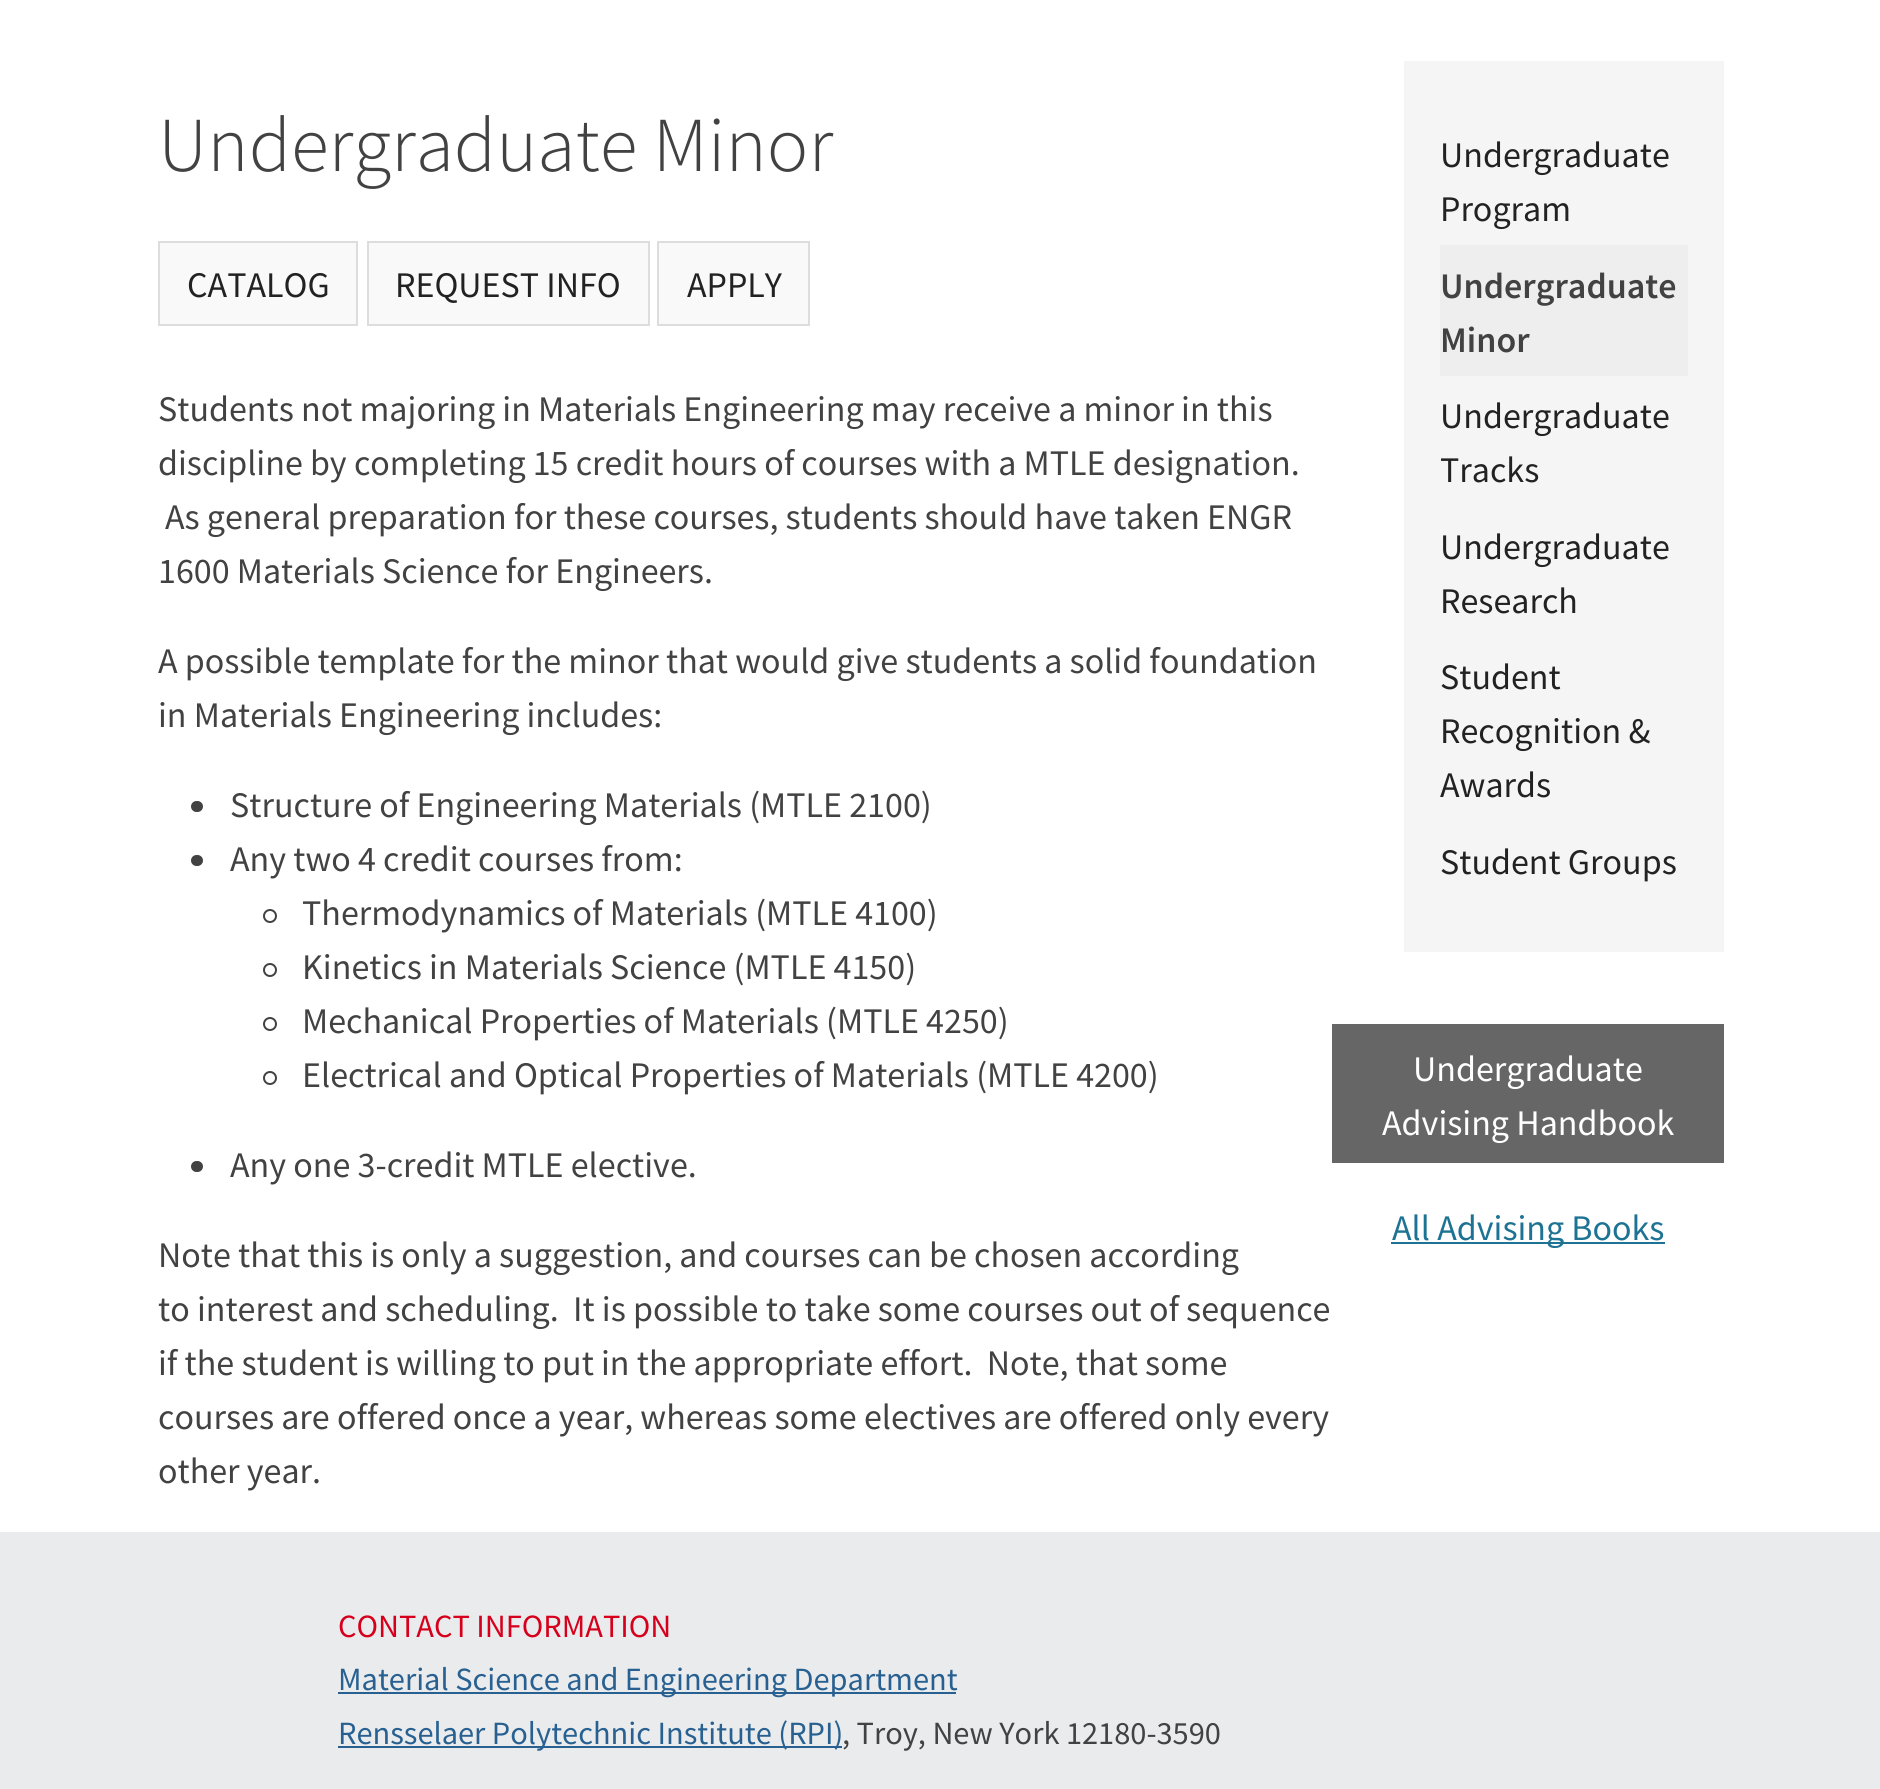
#include <cairo.h>
#include <math.h>
#include <stddef.h>

typedef struct { const char *family; double size; int italic, bold; unsigned color; } style_t;
static cairo_t *ctx;

static void ink(unsigned color) {
    cairo_set_source_rgb(ctx, (color >> 16) / 255.0, (color >> 8 & 255) / 255.0, (color & 255) / 255.0);
}

static void write(double x, double y, const char *s, const style_t *st) {
    cairo_select_font_face(ctx, st->family, st->italic ? CAIRO_FONT_SLANT_ITALIC : CAIRO_FONT_SLANT_NORMAL,
        st->bold ? CAIRO_FONT_WEIGHT_BOLD : CAIRO_FONT_WEIGHT_NORMAL);
    cairo_set_font_size(ctx, st->size);
    ink(st->color);
    cairo_move_to(ctx, x, y);
    cairo_show_text(ctx, s);
}

static void block(double x, double y, double w, double h, unsigned color) {
    ink(color);
    cairo_rectangle(ctx, x, y, w, h);
    cairo_fill(ctx);
}

static void round_path(double x, double y, double w, double h, double r) {
    cairo_new_sub_path(ctx);
    cairo_arc(ctx, x + w - r, y + h - r, r, 0, M_PI / 2);
    cairo_arc(ctx, x + r, y + h - r, r, M_PI / 2, M_PI);
    cairo_arc(ctx, x + r, y + r, r, M_PI, 1.5 * M_PI);
    cairo_arc(ctx, x + w - r, y + r, r, 1.5 * M_PI, 2 * M_PI);
    cairo_close_path(ctx);
}

static const style_t s1 = {"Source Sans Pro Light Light", 77.75, 0, 0, 0x424242};
static const style_t s2 = {"Source Sans Pro", 36, 0, 0, 0x222222};
static const style_t s3 = {"Source Sans Pro", 36, 0, 0, 0x424242};
static const style_t s4 = {"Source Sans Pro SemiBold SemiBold", 36, 0, 0, 0x424242};
static const style_t s5 = {"Source Sans Pro", 36, 0, 0, 0xffffff};
static const style_t s6 = {"Source Sans Pro", 36, 0, 0, 0x1e7394};
static const style_t s7 = {"Source Sans Pro", 32.4, 0, 0, 0xd6001c};
static const style_t s8 = {"Source Sans Pro", 32.4, 0, 0, 0x286191};
static const style_t s9 = {"Source Sans Pro", 32.4, 0, 0, 0x424242};

int main(void) {
    cairo_surface_t *surface = cairo_image_surface_create(CAIRO_FORMAT_RGB24, 1880, 1789);
    ctx = cairo_create(surface);
    cairo_font_options_t *options = cairo_font_options_create();
    cairo_font_options_set_hint_metrics(options, CAIRO_HINT_METRICS_OFF);
    cairo_font_options_set_hint_style(options, CAIRO_HINT_STYLE_NONE);
    cairo_set_font_options(ctx, options);
    cairo_set_miter_limit(ctx, 4);
    ink(0xffffff);
    cairo_paint(ctx);
    write(158, 171, "Undergraduate Minor", &s1);
    ink(0xf9f9f9);
    cairo_rectangle(ctx, 159, 242, 198, 83);
    cairo_fill_preserve(ctx);
    ink(0xdddddd);
    cairo_stroke(ctx);
    write(187, 297, "CATALOG", &s2);
    ink(0xf9f9f9);
    cairo_rectangle(ctx, 368, 242, 281, 83);
    cairo_fill_preserve(ctx);
    ink(0xdddddd);
    cairo_stroke(ctx);
    write(395, 297, "REQUEST INFO", &s2);
    ink(0xf9f9f9);
    cairo_rectangle(ctx, 658, 242, 151, 83);
    cairo_fill_preserve(ctx);
    ink(0xdddddd);
    cairo_stroke(ctx);
    write(687, 297, "APPLY", &s2);
    write(158, 421, "Students not majoring in Materials Engineering may receive a minor in this", &s3);
    write(158, 475, "discipline by completing 15 credit hours of courses with a MTLE designation.", &s3);
    write(165, 529, "As general preparation for these courses, students should have taken ENGR", &s3);
    write(158, 583, "1600 Materials Science for Engineers.", &s3);
    write(158, 673, "A possible template for the minor that would give students a solid foundation", &s3);
    write(158, 727, "in Materials Engineering includes:", &s3);
    round_path(191, 801, 12, 11, 5.5);
    cairo_fill(ctx);
    write(230, 817, "Structure of Engineering Materials (MTLE 2100)", &s3);
    round_path(191, 855, 12, 11, 5.5);
    cairo_fill(ctx);
    write(230, 871, "Any two 4 credit courses from:", &s3);
    cairo_new_path(ctx);
    cairo_arc(ctx, 270, 916, 6, 0, 2 * M_PI);
    cairo_stroke(ctx);
    write(302, 925, "Thermodynamics of Materials (MTLE 4100)", &s3);
    cairo_new_path(ctx);
    cairo_arc(ctx, 270, 970, 6, 0, 2 * M_PI);
    cairo_stroke(ctx);
    write(302, 979, "Kinetics in Materials Science (MTLE 4150)", &s3);
    cairo_new_path(ctx);
    cairo_arc(ctx, 270, 1024, 6, 0, 2 * M_PI);
    cairo_stroke(ctx);
    write(302, 1033, "Mechanical Properties of Materials (MTLE 4250)", &s3);
    cairo_new_path(ctx);
    cairo_arc(ctx, 270, 1078, 6, 0, 2 * M_PI);
    cairo_stroke(ctx);
    write(302, 1087, "Electrical and Optical Properties of Materials (MTLE 4200)", &s3);
    round_path(191, 1161, 12, 11, 5.5);
    cairo_fill(ctx);
    write(230, 1177, "Any one 3-credit MTLE elective.", &s3);
    write(158, 1267, "Note that this is only a suggestion, and courses can be chosen according", &s3);
    write(158, 1321, "to interest and scheduling.  It is possible to take some courses out of sequence", &s3);
    write(158, 1375, "if the student is willing to put in the appropriate effort.  Note, that some", &s3);
    write(158, 1429, "courses are offered once a year, whereas some electives are offered only every", &s3);
    write(158, 1483, "other year.", &s3);
    block(1404, 61, 320, 891, 0xf5f5f5);
    write(1440, 167, "Undergraduate", &s2);
    write(1440, 221, "Program", &s2);
    block(1440, 245, 248, 131, 0xeeeeee);
    write(1440, 298, "Undergraduate", &s4);
    write(1440, 352, "Minor", &s4);
    write(1440, 428, "Undergraduate", &s2);
    write(1440, 482, "Tracks", &s2);
    write(1440, 559, "Undergraduate", &s2);
    write(1440, 613, "Research", &s2);
    write(1440, 689, "Student", &s2);
    write(1440, 743, "Recognition &", &s2);
    write(1440, 797, "Awards", &s2);
    write(1440, 874, "Student Groups", &s2);
    block(1332, 1024, 392, 139, 0x666666);
    write(1413, 1081, "Undergraduate", &s5);
    write(1382, 1135, "Advising Handbook", &s5);
    block(1391, 1242, 274, 2, 0x1e7394);
    write(1392, 1240, "All Advising Books", &s6);
    block(0, 1532, 1880, 257, 0xeaebec);
    write(338, 1637, "CONTACT INFORMATION", &s7);
    block(338, 1692, 618, 2, 0x286191);
    write(338, 1690, "Material Science and Engineering Department", &s8);
    block(338, 1746, 504, 2, 0x286191);
    write(338, 1744, "Rensselaer Polytechnic Institute (RPI)", &s8);
    write(842, 1744, ", Troy, New York 12180-3590", &s9);
    cairo_surface_write_to_png(surface, "screenshot.png");
    cairo_font_options_destroy(options);
    cairo_destroy(ctx);
    cairo_surface_destroy(surface);
    return 0;
}
